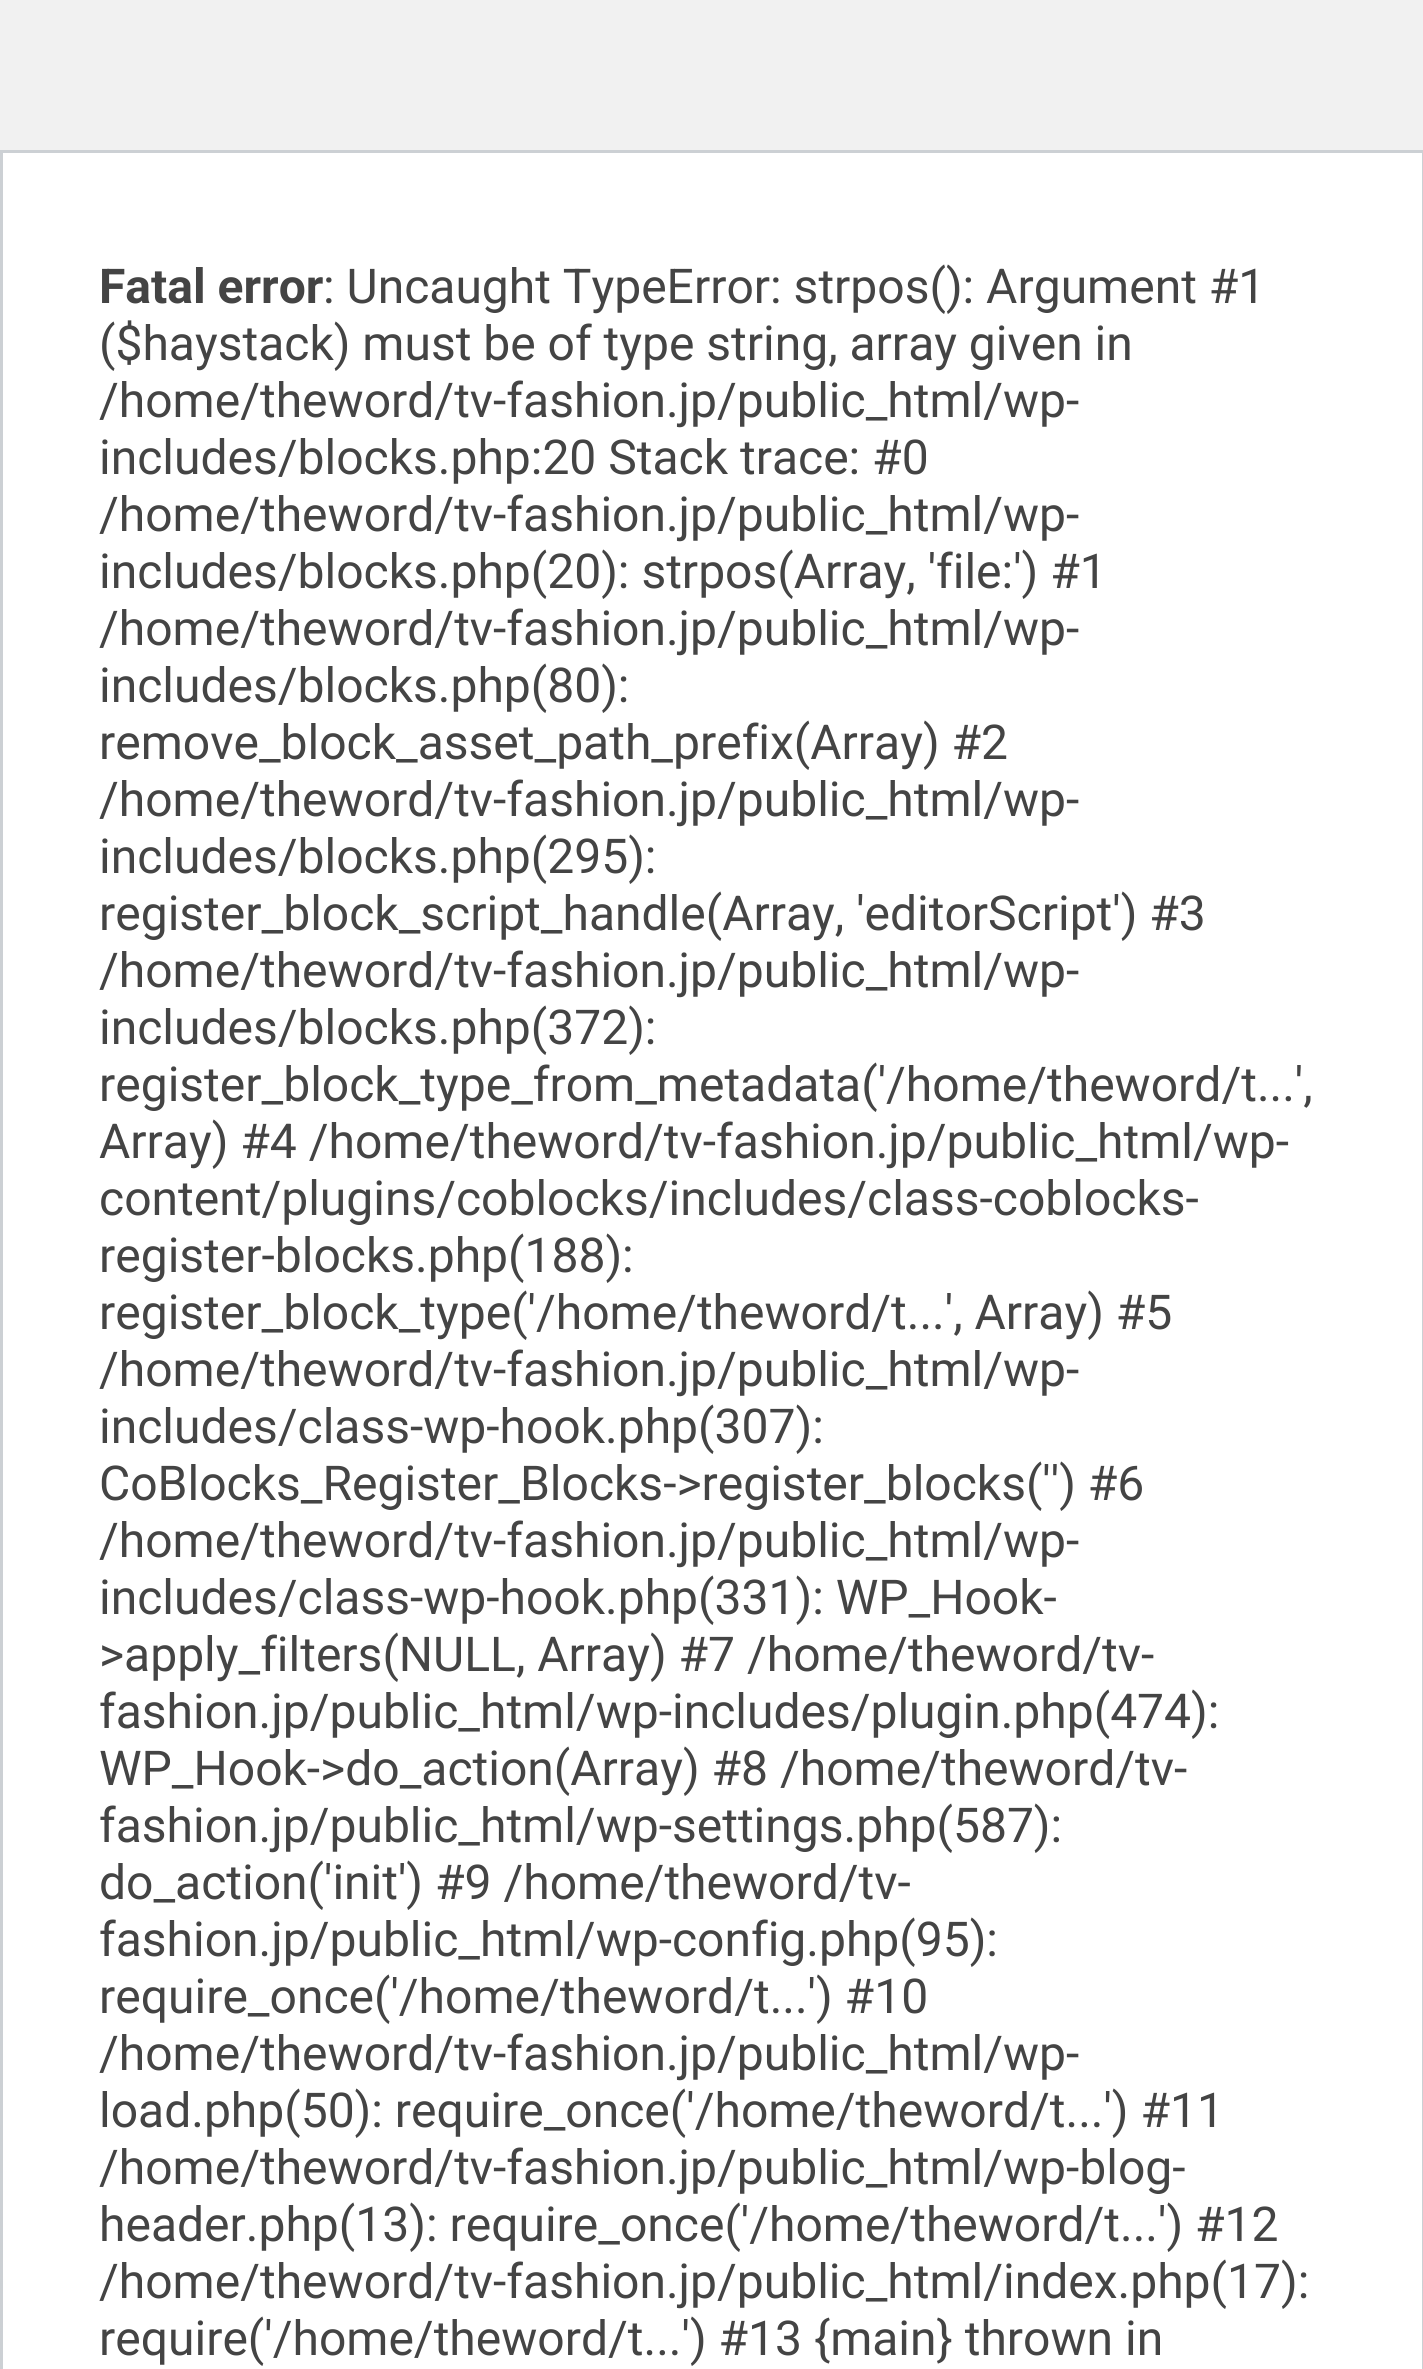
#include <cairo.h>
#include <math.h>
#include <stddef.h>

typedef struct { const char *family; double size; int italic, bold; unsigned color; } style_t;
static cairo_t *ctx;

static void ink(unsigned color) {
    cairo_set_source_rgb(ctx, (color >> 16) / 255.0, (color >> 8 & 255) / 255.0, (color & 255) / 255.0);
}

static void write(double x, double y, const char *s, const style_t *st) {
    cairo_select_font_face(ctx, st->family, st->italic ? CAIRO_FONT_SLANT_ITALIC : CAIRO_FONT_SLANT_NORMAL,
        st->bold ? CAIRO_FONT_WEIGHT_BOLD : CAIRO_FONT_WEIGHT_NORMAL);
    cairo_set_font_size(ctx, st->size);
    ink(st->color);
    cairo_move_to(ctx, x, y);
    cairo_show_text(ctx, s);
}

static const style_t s1 = {"Roboto", 48, 0, 1, 0x444444};
static const style_t s2 = {"Roboto", 48, 0, 0, 0x444444};

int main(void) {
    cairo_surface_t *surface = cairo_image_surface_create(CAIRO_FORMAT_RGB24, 1423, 2369);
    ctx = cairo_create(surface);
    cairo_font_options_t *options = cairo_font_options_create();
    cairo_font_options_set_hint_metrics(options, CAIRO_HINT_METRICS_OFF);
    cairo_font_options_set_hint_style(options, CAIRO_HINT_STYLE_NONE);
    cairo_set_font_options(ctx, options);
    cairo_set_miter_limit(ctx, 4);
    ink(0xf1f1f1);
    cairo_paint(ctx);
    ink(0xffffff);
    cairo_rectangle(ctx, 1.5, 151.5, 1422, 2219);
    cairo_fill_preserve(ctx);
    ink(0xccd0d4);
    cairo_set_line_width(ctx, 3);
    cairo_stroke(ctx);
    write(99, 303, "Fatal error", &s1);
    write(323, 303, ": Uncaught TypeError: strpos(): Argument #1", &s2);
    write(99, 360, "($haystack) must be of type string, array given in", &s2);
    write(99, 417, "/home/theword/tv-fashion.jp/public_html/wp-", &s2);
    write(99, 474, "includes/blocks.php:20 Stack trace: #0", &s2);
    write(99, 531, "/home/theword/tv-fashion.jp/public_html/wp-", &s2);
    write(99, 588, "includes/blocks.php(20): strpos(Array, 'file:') #1", &s2);
    write(99, 645, "/home/theword/tv-fashion.jp/public_html/wp-", &s2);
    write(99, 702, "includes/blocks.php(80):", &s2);
    write(99, 759, "remove_block_asset_path_prefix(Array) #2", &s2);
    write(99, 816, "/home/theword/tv-fashion.jp/public_html/wp-", &s2);
    write(99, 873, "includes/blocks.php(295):", &s2);
    write(99, 930, "register_block_script_handle(Array, 'editorScript') #3", &s2);
    write(99, 987, "/home/theword/tv-fashion.jp/public_html/wp-", &s2);
    write(99, 1044, "includes/blocks.php(372):", &s2);
    write(99, 1101, "register_block_type_from_metadata('/home/theword/t...',", &s2);
    write(99, 1158, "Array) #4 /home/theword/tv-fashion.jp/public_html/wp-", &s2);
    write(99, 1215, "content/plugins/coblocks/includes/class-coblocks-", &s2);
    write(99, 1272, "register-blocks.php(188):", &s2);
    write(99, 1329, "register_block_type('/home/theword/t...', Array) #5", &s2);
    write(99, 1386, "/home/theword/tv-fashion.jp/public_html/wp-", &s2);
    write(99, 1443, "includes/class-wp-hook.php(307):", &s2);
    write(99, 1500, "CoBlocks_Register_Blocks->register_blocks('') #6", &s2);
    write(99, 1557, "/home/theword/tv-fashion.jp/public_html/wp-", &s2);
    write(99, 1614, "includes/class-wp-hook.php(331): WP_Hook-", &s2);
    write(99, 1671, ">apply_filters(NULL, Array) #7 /home/theword/tv-", &s2);
    write(99, 1728, "fashion.jp/public_html/wp-includes/plugin.php(474):", &s2);
    write(99, 1785, "WP_Hook->do_action(Array) #8 /home/theword/tv-", &s2);
    write(99, 1842, "fashion.jp/public_html/wp-settings.php(587):", &s2);
    write(99, 1899, "do_action('init') #9 /home/theword/tv-", &s2);
    write(99, 1956, "fashion.jp/public_html/wp-config.php(95):", &s2);
    write(99, 2013, "require_once('/home/theword/t...') #10", &s2);
    write(99, 2070, "/home/theword/tv-fashion.jp/public_html/wp-", &s2);
    write(99, 2127, "load.php(50): require_once('/home/theword/t...') #11", &s2);
    write(99, 2184, "/home/theword/tv-fashion.jp/public_html/wp-blog-", &s2);
    write(99, 2241, "header.php(13): require_once('/home/theword/t...') #12", &s2);
    write(99, 2298, "/home/theword/tv-fashion.jp/public_html/index.php(17):", &s2);
    write(99, 2355, "require('/home/theword/t...') #13 {main} thrown in", &s2);
    cairo_surface_write_to_png(surface, "screenshot.png");
    cairo_font_options_destroy(options);
    cairo_destroy(ctx);
    cairo_surface_destroy(surface);
    return 0;
}
